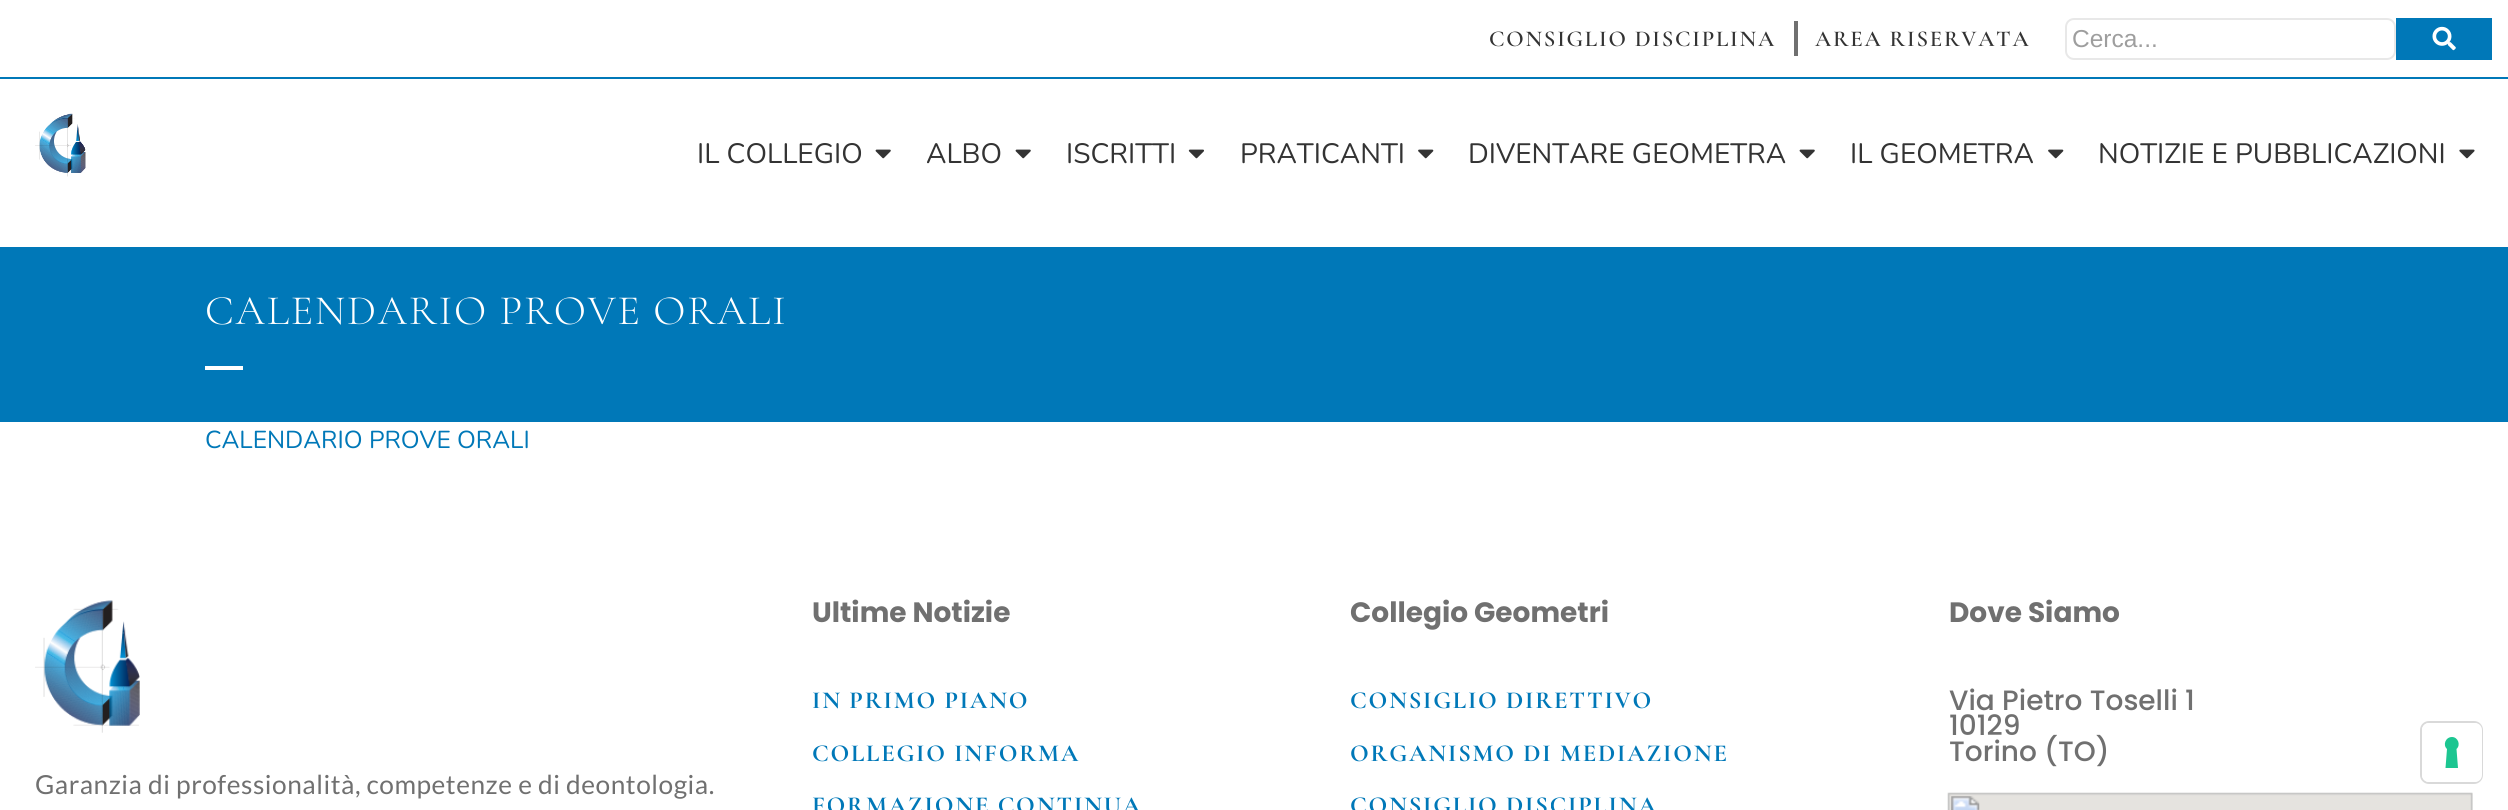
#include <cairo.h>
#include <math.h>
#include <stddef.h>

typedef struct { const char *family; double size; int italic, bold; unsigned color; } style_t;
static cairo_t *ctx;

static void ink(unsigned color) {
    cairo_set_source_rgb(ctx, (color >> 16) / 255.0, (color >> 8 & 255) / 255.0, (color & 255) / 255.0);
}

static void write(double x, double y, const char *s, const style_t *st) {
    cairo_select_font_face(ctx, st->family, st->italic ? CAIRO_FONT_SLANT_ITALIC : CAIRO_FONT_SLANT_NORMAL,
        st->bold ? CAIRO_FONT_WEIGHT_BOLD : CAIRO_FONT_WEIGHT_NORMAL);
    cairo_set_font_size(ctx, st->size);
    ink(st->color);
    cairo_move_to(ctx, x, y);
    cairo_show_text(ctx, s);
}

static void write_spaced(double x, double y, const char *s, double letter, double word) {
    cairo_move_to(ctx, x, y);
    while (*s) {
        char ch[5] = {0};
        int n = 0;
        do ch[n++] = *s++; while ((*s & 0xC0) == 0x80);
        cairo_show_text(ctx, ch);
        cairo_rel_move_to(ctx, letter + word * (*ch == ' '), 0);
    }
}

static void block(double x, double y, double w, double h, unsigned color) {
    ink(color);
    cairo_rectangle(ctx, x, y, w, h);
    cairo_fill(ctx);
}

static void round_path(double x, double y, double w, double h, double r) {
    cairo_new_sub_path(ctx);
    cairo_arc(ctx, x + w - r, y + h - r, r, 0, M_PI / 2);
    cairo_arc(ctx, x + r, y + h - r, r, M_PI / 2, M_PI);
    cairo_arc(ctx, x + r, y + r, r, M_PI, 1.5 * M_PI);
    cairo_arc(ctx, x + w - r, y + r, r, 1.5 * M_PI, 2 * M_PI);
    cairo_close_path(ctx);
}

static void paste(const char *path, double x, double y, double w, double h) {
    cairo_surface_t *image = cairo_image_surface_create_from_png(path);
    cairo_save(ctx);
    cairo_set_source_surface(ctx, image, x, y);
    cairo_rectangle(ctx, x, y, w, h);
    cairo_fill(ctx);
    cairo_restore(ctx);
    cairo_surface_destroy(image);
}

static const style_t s1 = {"Liberation Sans", 24.5, 0, 0, 0x9e9e9e};
static const style_t s2 = {"Nunito", 28, 0, 0, 0x333333};
static const style_t s3 = {"Nunito", 24.5, 0, 0, 0x0078b8};
static const style_t s4 = {"Poppins", 28, 0, 1, 0x707070};
static const style_t s5 = {"Poppins Medium", 28, 0, 0, 0x707070};

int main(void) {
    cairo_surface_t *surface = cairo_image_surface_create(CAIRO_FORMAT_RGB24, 2508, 810);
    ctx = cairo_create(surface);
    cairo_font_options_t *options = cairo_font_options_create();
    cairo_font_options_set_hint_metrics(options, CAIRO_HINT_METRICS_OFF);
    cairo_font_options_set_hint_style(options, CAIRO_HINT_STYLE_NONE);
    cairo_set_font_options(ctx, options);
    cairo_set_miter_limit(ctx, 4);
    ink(0xffffff);
    cairo_paint(ctx);
    block(0, 77, 2508, 2, 0x0078b8);
    cairo_select_font_face(ctx, "Cormorant Garamond SemiBold", CAIRO_FONT_SLANT_NORMAL, CAIRO_FONT_WEIGHT_NORMAL);
    cairo_set_font_size(ctx, 22.75);
    ink(0x333333);
    write_spaced(1489, 46, "CONSIGLIO DISCIPLINA", 1.75, 0);
    block(1794, 21, 4, 35, 0x707070);
    ink(0x333333);
    write_spaced(1815, 46, "AREA RISERVATA", 1.75, 0);
    round_path(2066, 19, 329, 40, 8);
    ink(0xe8e8e8);
    cairo_stroke(ctx);
    write(2072, 47, "Cerca...", &s1);
    block(2396, 18, 96, 42, 0x0078b8);
    paste("pic1.png", 2432, 26, 24, 25);
    paste("pic2.png", 35, 113, 51, 64);
    write(697, 163, "IL COLLEGIO", &s2);
    paste("pic3.png", 875, 149, 16, 10);
    write(926, 163, "ALBO", &s2);
    paste("pic3.png", 1015, 149, 16, 10);
    write(1066, 163, "ISCRITTI", &s2);
    paste("pic4.png", 1188, 149, 16, 10);
    write(1240, 163, "PRATICANTI", &s2);
    paste("pic5.png", 1418, 149, 16, 10);
    write(1468, 163, "DIVENTARE GEOMETRA", &s2);
    paste("pic3.png", 1799, 149, 16, 10);
    write(1850, 163, "IL GEOMETRA", &s2);
    paste("pic5.png", 2048, 149, 16, 10);
    write(2098, 163, "NOTIZIE E PUBBLICAZIONI", &s2);
    paste("pic6.png", 2459, 149, 16, 10);
    block(0, 247, 2508, 175, 0x0078b8);
    cairo_select_font_face(ctx, "Cormorant Garamond Light", CAIRO_FONT_SLANT_NORMAL, CAIRO_FONT_WEIGHT_NORMAL);
    cairo_set_font_size(ctx, 42);
    ink(0xffffff);
    write_spaced(205, 324, "CALENDARIO PROVE ORALI", 1.75, 0);
    block(205, 366, 38, 4, 0xffffff);
    write(205, 448, "CALENDARIO PROVE ORALI", &s3);
    write(812, 622, "Ultime Notizie", &s4);
    cairo_select_font_face(ctx, "Cormorant Garamond", CAIRO_FONT_SLANT_NORMAL, CAIRO_FONT_WEIGHT_BOLD);
    cairo_set_font_size(ctx, 24.5);
    ink(0x0078b8);
    write_spaced(812, 708, "IN PRIMO PIANO", 1.75, 0);
    write_spaced(812, 761, "COLLEGIO INFORMA", 1.75, 0);
    write_spaced(812, 813, "FORMAZIONE CONTINUA", 1.75, 0);
    write(1350, 622, "Collegio Geometri", &s4);
    cairo_select_font_face(ctx, "Cormorant Garamond", CAIRO_FONT_SLANT_NORMAL, CAIRO_FONT_WEIGHT_BOLD);
    cairo_set_font_size(ctx, 24.5);
    ink(0x0078b8);
    write_spaced(1350, 708, "CONSIGLIO DIRETTIVO", 1.75, 0);
    write_spaced(1350, 761, "ORGANISMO DI MEDIAZIONE", 1.75, 0);
    write_spaced(1350, 813, "CONSIGLIO DISCIPLINA", 1.75, 0);
    write(1949, 622, "Dove Siamo", &s4);
    write(1949, 710, "Via Pietro Toselli 1", &s5);
    write(1949, 735, "10129", &s5);
    write(1949, 761, "Torino (TO)", &s5);
    paste("pic7.png", 1947, 792, 526, 18);
    paste("pic8.png", 35, 600, 105, 133);
    cairo_select_font_face(ctx, "Lato", CAIRO_FONT_SLANT_NORMAL, CAIRO_FONT_WEIGHT_NORMAL);
    cairo_set_font_size(ctx, 26.25);
    write_spaced(35, 794, "Garanzia di professionalità, competenze e di deontologia.", 0.53, 0);
    round_path(2421, 722, 61, 61, 8);
    ink(0xd9d9d9);
    cairo_stroke(ctx);
    ink(0xffffff);
    round_path(2422, 723, 60, 59, 7);
    cairo_fill(ctx);
    ink(0x1cc691);
    cairo_set_fill_rule(ctx, CAIRO_FILL_RULE_EVEN_ODD);
    cairo_new_path(ctx);
    cairo_move_to(ctx, 2452, 737);
    cairo_curve_to(ctx, 2458, 737, 2461, 745, 2456.5, 749);
    cairo_line_to(ctx, 2458, 768);
    cairo_line_to(ctx, 2445.5, 768);
    cairo_line_to(ctx, 2447, 749);
    cairo_curve_to(ctx, 2442.5, 745, 2445.5, 737, 2452, 737);
    cairo_close_path(ctx);
    cairo_fill(ctx);
    cairo_surface_write_to_png(surface, "screenshot.png");
    cairo_font_options_destroy(options);
    cairo_destroy(ctx);
    cairo_surface_destroy(surface);
    return 0;
}
